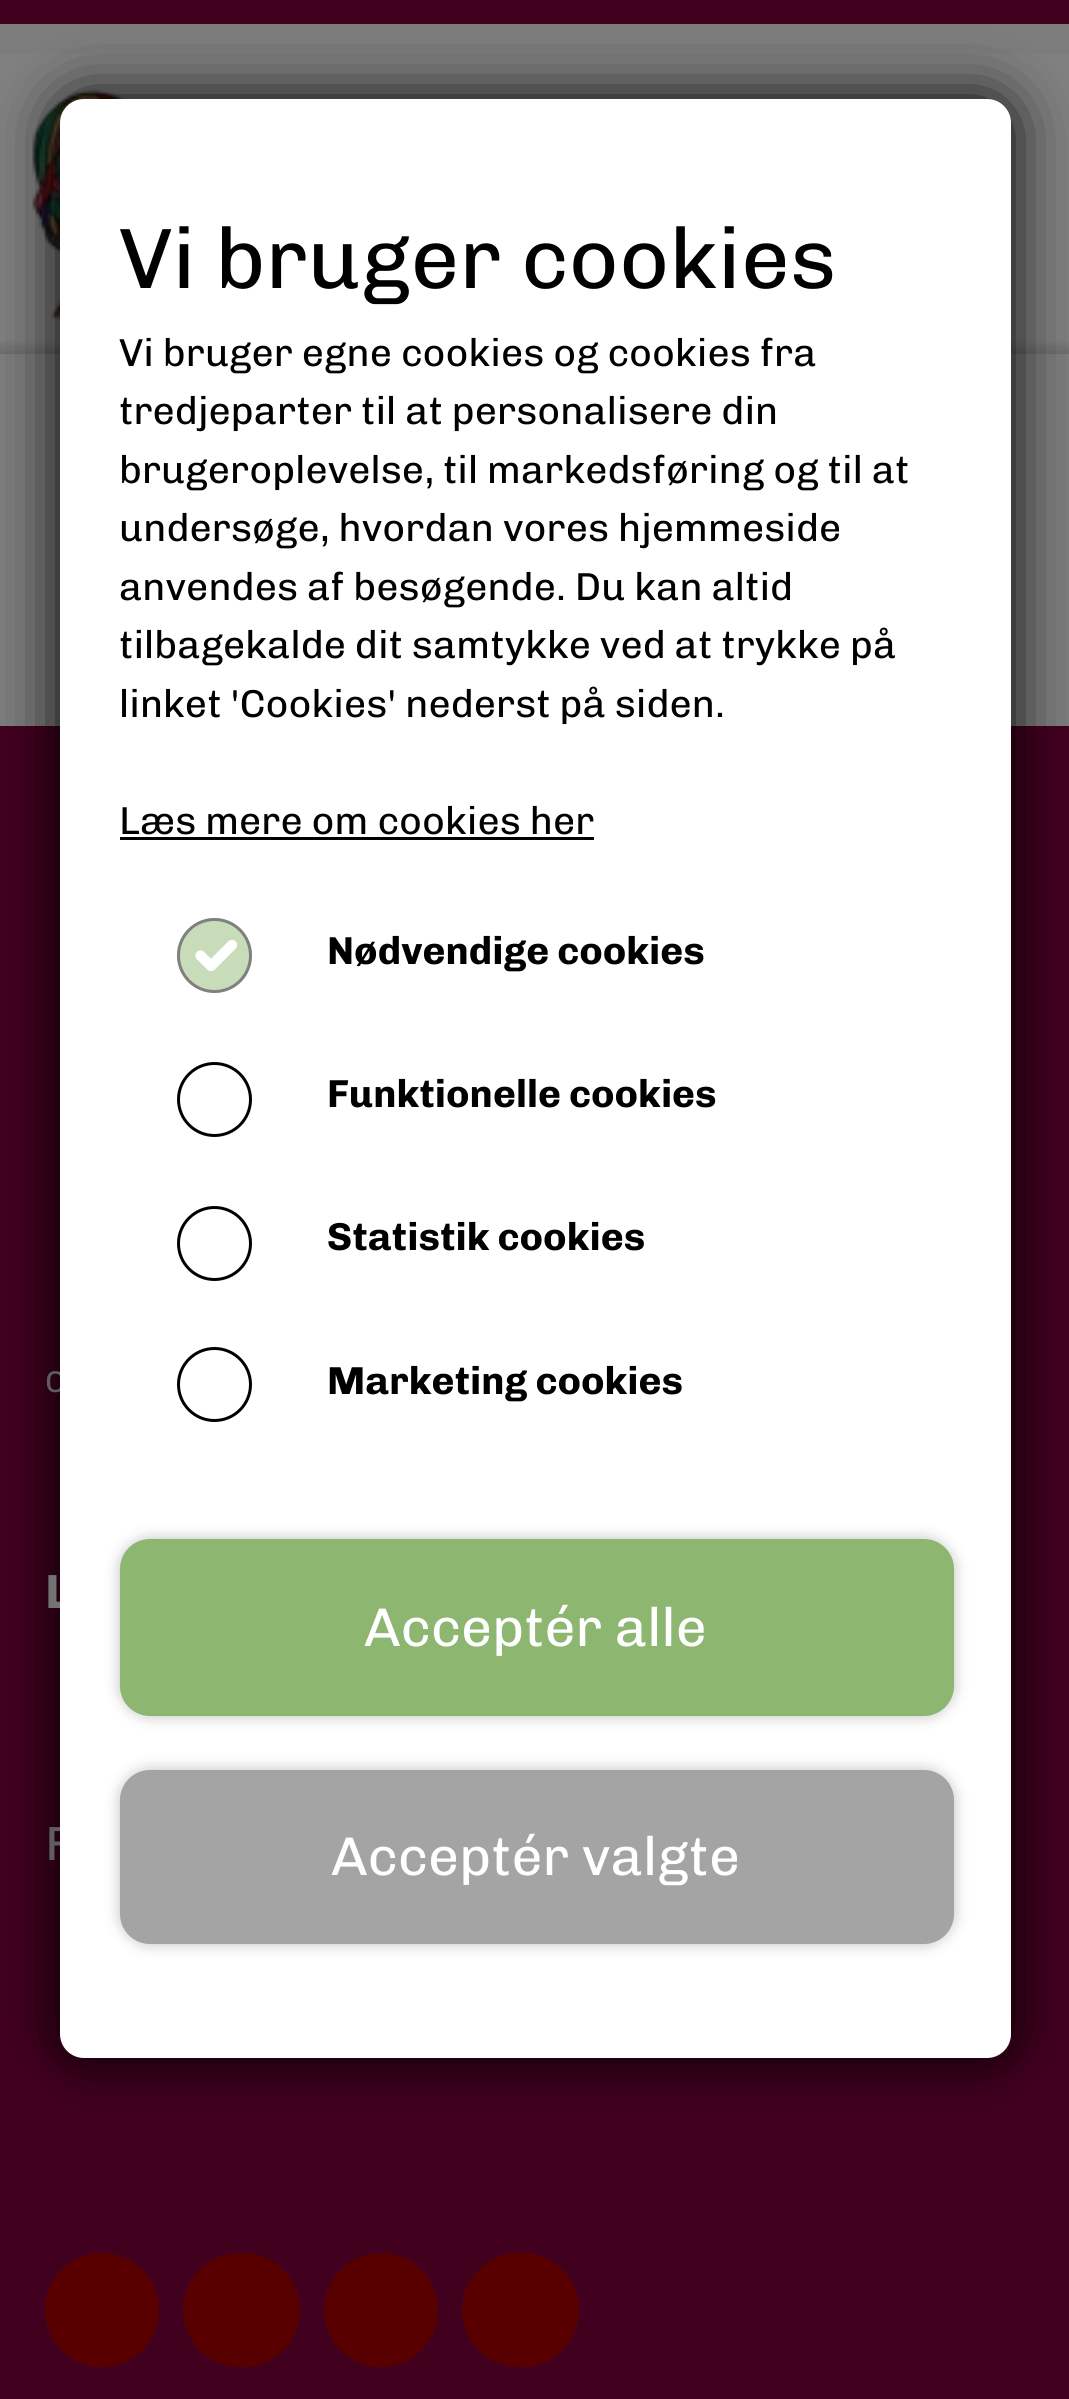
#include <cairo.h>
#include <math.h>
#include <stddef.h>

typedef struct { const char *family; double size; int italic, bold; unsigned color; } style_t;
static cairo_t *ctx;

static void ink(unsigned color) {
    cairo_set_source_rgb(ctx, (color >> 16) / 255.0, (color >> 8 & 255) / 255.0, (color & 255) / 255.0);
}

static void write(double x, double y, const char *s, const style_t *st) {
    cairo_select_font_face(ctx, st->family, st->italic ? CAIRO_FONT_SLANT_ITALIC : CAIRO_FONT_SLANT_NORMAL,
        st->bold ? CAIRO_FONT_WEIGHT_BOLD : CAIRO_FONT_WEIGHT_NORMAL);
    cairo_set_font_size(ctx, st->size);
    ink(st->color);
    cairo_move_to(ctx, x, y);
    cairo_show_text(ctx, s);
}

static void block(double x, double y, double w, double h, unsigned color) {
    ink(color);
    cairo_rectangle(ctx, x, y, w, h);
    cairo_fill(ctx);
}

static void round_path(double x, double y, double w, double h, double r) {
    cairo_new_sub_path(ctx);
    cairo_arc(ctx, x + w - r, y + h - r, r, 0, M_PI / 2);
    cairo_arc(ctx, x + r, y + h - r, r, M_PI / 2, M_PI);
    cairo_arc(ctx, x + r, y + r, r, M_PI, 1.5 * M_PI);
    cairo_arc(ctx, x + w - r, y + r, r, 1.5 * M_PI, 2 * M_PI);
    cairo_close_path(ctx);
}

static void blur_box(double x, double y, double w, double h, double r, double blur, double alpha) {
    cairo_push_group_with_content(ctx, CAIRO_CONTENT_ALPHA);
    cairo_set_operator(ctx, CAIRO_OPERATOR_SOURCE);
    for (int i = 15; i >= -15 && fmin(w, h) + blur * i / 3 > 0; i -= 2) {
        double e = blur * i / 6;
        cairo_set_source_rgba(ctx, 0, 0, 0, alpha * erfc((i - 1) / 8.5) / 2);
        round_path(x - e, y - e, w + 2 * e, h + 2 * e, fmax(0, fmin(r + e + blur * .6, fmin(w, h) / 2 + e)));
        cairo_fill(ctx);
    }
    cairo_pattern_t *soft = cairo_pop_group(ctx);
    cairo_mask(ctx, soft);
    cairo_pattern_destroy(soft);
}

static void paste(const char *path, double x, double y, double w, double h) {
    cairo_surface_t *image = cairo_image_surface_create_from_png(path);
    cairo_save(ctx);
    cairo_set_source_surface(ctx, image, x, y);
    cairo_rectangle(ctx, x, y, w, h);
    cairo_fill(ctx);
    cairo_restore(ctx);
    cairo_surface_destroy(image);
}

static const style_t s1 = {"Chivo", 30, 0, 0, 0x5e5e5e};
static const style_t s2 = {"Chivo", 48, 0, 1, 0x737373};
static const style_t s3 = {"Chivo", 48, 0, 0, 0x5e5e5e};
static const style_t s4 = {"Chivo", 85.75, 0, 0, 0x000000};
static const style_t s5 = {"Chivo", 39, 0, 0, 0x000000};
static const style_t s6 = {"Chivo", 39, 0, 1, 0x000000};
static const style_t s7 = {"Chivo", 54.5, 0, 0, 0xffffff};

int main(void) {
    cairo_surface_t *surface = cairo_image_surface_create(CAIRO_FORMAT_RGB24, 1069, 2399);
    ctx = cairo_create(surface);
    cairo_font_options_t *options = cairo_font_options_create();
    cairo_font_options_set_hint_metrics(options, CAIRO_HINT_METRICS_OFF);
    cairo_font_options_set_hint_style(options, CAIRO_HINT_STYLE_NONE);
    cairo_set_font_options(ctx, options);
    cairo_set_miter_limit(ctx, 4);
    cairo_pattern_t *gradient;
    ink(0x42001f);
    cairo_paint(ctx);
    block(0, 24, 1069, 30, 0x7d7d7d);
    block(0, 54, 1069, 285, 0x808080);
    paste("pic1.png", 32, 89, 95, 231);
    gradient = cairo_pattern_create_linear(536, 354, 536, 339);
    cairo_pattern_add_color_stop_rgba(gradient, 0, 0.427, 0.427, 0.427, 1);
    cairo_pattern_add_color_stop_rgba(gradient, 1, 0.502, 0.502, 0.502, 1);
    cairo_set_source(ctx, gradient);
    cairo_pattern_destroy(gradient);
    cairo_rectangle(ctx, 0, 339, 1069, 15);
    cairo_fill(ctx);
    block(0, 354, 1069, 372, 0x7d7d7d);
    ink(0x000000);
    blur_box(60, 99, 951, 1959, 24, 30, 1);
    write(45, 1392, "C", &s1);
    write(45, 1608, "L", &s2);
    write(45, 1860, "F", &s3);
    ink(0xffffff);
    round_path(60, 99, 951, 1959, 24);
    cairo_fill(ctx);
    write(119, 288, "Vi bruger cookies", &s4);
    write(119, 366, "Vi bruger egne cookies og cookies fra", &s5);
    write(119, 424, "tredjeparter til at personalisere din", &s5);
    write(119, 483, "brugeroplevelse, til markedsføring og til at", &s5);
    write(119, 541, "undersøge, hvordan vores hjemmeside", &s5);
    write(119, 600, "anvendes af besøgende. Du kan altid", &s5);
    write(119, 658, "tilbagekalde dit samtykke ved at trykke på", &s5);
    write(119, 717, "linket 'Cookies' nederst på siden.", &s5);
    write(119, 834, "Læs mere om cookies her", &s5);
    block(120, 837, 474, 3, 0x000000);
    ink(0xc8dcba);
    cairo_new_path(ctx);
    cairo_arc(ctx, 214.5, 955.5, 37.5, 0, 2 * M_PI);
    cairo_fill(ctx);
    cairo_new_path(ctx);
    cairo_move_to(ctx, 200.5, 955.5);
    cairo_line_to(ctx, 211, 966);
    cairo_line_to(ctx, 232, 945);
    ink(0xffffff);
    cairo_set_line_width(ctx, 10.3);
    cairo_set_line_cap(ctx, CAIRO_LINE_CAP_ROUND);
    cairo_set_line_join(ctx, CAIRO_LINE_JOIN_ROUND);
    cairo_stroke(ctx);
    cairo_arc(ctx, 214.5, 955.5, 36, 0, 2 * M_PI);
    ink(0x808080);
    cairo_set_line_width(ctx, 3);
    cairo_set_line_cap(ctx, CAIRO_LINE_CAP_BUTT);
    cairo_set_line_join(ctx, CAIRO_LINE_JOIN_MITER);
    cairo_stroke(ctx);
    write(327, 964, "Nødvendige cookies", &s6);
    cairo_new_path(ctx);
    cairo_arc(ctx, 214.5, 1099.5, 36, 0, 2 * M_PI);
    cairo_stroke(ctx);
    write(327, 1107, "Funktionelle cookies", &s6);
    cairo_new_path(ctx);
    cairo_arc(ctx, 214.5, 1243.5, 36, 0, 2 * M_PI);
    cairo_stroke(ctx);
    write(327, 1250, "Statistik cookies", &s6);
    cairo_new_path(ctx);
    cairo_arc(ctx, 214.5, 1384.5, 36, 0, 2 * M_PI);
    cairo_stroke(ctx);
    write(327, 1394, "Marketing cookies", &s6);
    ink(0x000000);
    blur_box(120, 1539, 834, 177, 30, 7.5, 0.25);
    ink(0x8db671);
    round_path(120, 1539, 834, 177, 30);
    cairo_fill(ctx);
    write(364, 1646, "Acceptér alle", &s7);
    ink(0x000000);
    blur_box(120, 1770, 834, 174, 30, 7.5, 0.25);
    ink(0xa4a4a4);
    round_path(120, 1770, 834, 174, 30);
    cairo_fill(ctx);
    write(331, 1875, "Acceptér valgte", &s7);
    ink(0x580000);
    cairo_new_path(ctx);
    cairo_arc(ctx, 102, 2310, 57, 0, 2 * M_PI);
    cairo_fill(ctx);
    round_path(183, 2253, 117, 114, 57);
    cairo_fill(ctx);
    cairo_arc(ctx, 381, 2310, 57, 0, 2 * M_PI);
    cairo_fill(ctx);
    round_path(462, 2253, 117, 114, 57);
    cairo_fill(ctx);
    cairo_surface_write_to_png(surface, "screenshot.png");
    cairo_font_options_destroy(options);
    cairo_destroy(ctx);
    cairo_surface_destroy(surface);
    return 0;
}
